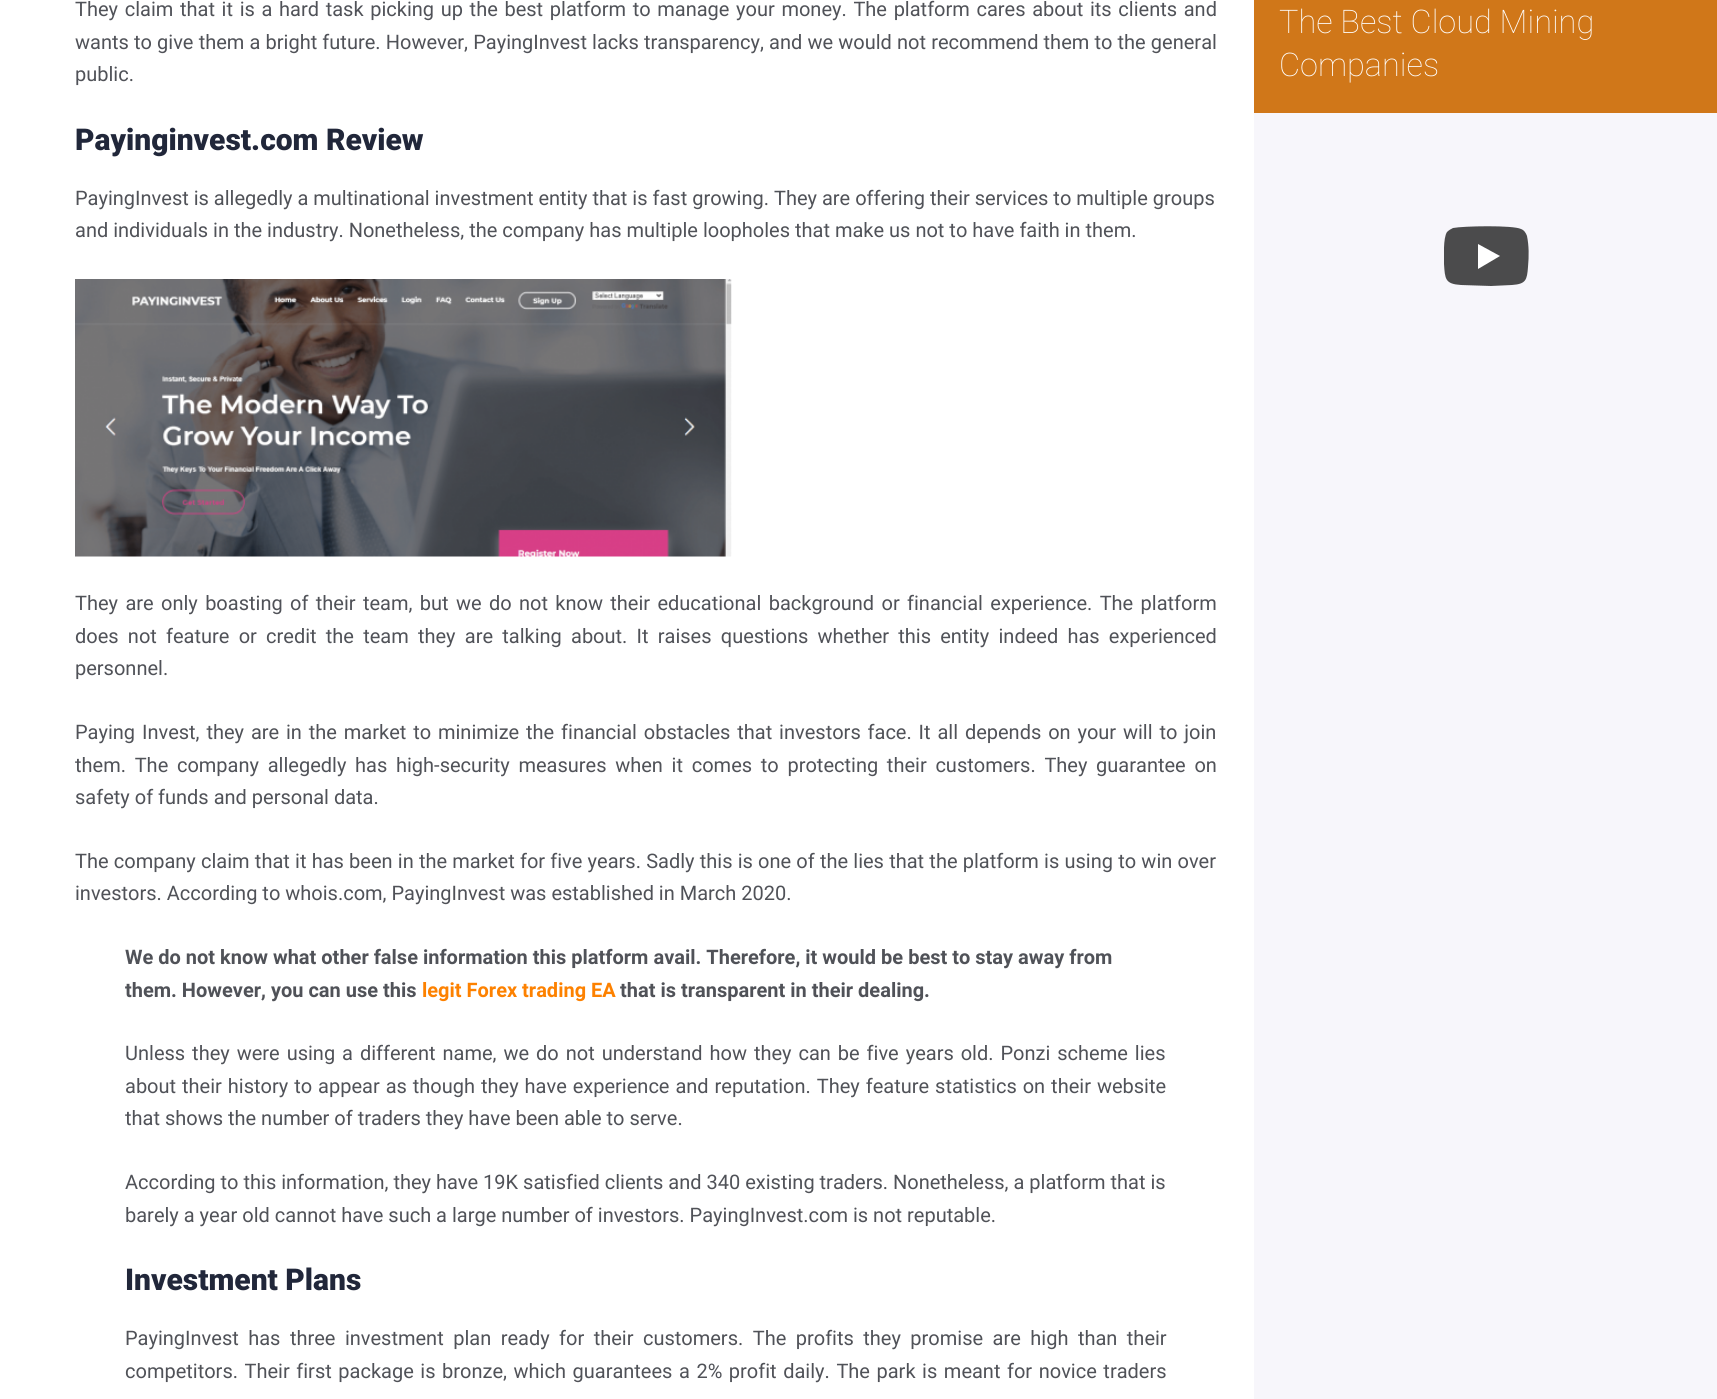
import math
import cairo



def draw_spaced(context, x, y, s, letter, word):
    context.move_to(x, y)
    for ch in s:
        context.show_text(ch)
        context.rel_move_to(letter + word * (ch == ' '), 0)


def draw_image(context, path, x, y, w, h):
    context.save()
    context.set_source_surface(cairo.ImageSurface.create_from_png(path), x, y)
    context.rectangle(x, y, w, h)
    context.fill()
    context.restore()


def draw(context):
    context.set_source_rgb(247 / 255, 246 / 255, 251 / 255)
    context.paint()
    context.set_source_rgb(1, 1, 1)
    context.rectangle(0, 0, 1254, 1399)
    context.fill()
    draw_image(context, "images/1.png", 75, 279, 657, 278)
    context.set_source_rgb(208 / 255, 119 / 255, 25 / 255)
    context.rectangle(1254, 0, 463, 113)
    context.fill()
    context.set_source_rgb(1, 1, 1)
    context.new_path()
    context.move_to(1478, 269)
    context.line_to(1478, 243.5)
    context.line_to(1500, 256.5)
    context.close_path()
    context.fill()
    context.save()
    context.rectangle(1444, 226, 85, 60)
    context.clip()
    context.set_source_rgba(33 / 255, 33 / 255, 33 / 255, 0.8)
    context.new_path()
    context.move_to(1527, 236)
    context.curve_to(1526, 233, 1524, 230, 1521, 229)
    context.curve_to(1513, 225, 1463, 226, 1453, 228)
    context.curve_to(1451, 229, 1449, 230, 1447, 232)
    context.curve_to(1443, 238, 1444, 257, 1444, 264)
    context.curve_to(1445, 279, 1445, 284, 1461, 285)
    context.line_to(1491, 286)
    context.line_to(1512, 285)
    context.curve_to(1526, 284, 1527, 280, 1528, 267)
    context.curve_to(1529, 256, 1529, 246, 1527, 236)
    context.close_path()
    context.move_to(1478, 269)
    context.line_to(1478, 244)
    context.line_to(1500, 256)
    context.close_path()
    context.fill()
    context.restore()
    context.select_font_face("Roboto")
    context.set_font_size(20)
    context.set_source_rgb(80 / 255, 82 / 255, 88 / 255)
    draw_spaced(context, 75, 16, "They claim that it is a hard task picking up the best platform to manage your money. The platform cares about its clients and", 0, 1.7)
    draw_spaced(context, 75, 49, "wants to give them a bright future. However, PayingInvest lacks transparency, and we would not recommend them to the general", 0, 0.2)
    context.move_to(75, 81)
    context.show_text("public.")
    context.select_font_face("Roboto Black")
    context.set_font_size(30)
    context.set_source_rgb(33 / 255, 39 / 255, 58 / 255)
    context.move_to(75, 150)
    context.show_text("Payinginvest.com Review")
    context.select_font_face("Roboto")
    context.set_font_size(20)
    context.set_source_rgb(80 / 255, 82 / 255, 88 / 255)
    context.move_to(75, 205)
    context.show_text("PayingInvest is allegedly a multinational investment entity that is fast growing. They are offering their services to multiple groups")
    context.move_to(75, 237)
    context.show_text("and individuals in the industry. Nonetheless, the company has multiple loopholes that make us not to have faith in them.")
    draw_spaced(context, 75, 610, "They are only boasting of their team, but we do not know their educational background or financial experience. The platform", 0, 2.4)
    draw_spaced(context, 75, 643, "does not feature or credit the team they are talking about. It raises questions whether this entity indeed has experienced", 0, 4.25)
    context.move_to(75, 675)
    context.show_text("personnel.")
    draw_spaced(context, 75, 739, "Paying Invest, they are in the market to minimize the financial obstacles that investors face. It all depends on your will to join", 0, 1.9)
    draw_spaced(context, 75, 772, "them. The company allegedly has high-security measures when it comes to protecting their customers. They guarantee on", 0, 3.75)
    context.move_to(75, 804)
    context.show_text("safety of funds and personal data.")
    draw_spaced(context, 75, 868, "The company claim that it has been in the market for five years. Sadly this is one of the lies that the platform is using to win over", 0, 0.25)
    context.move_to(75, 900)
    context.show_text("investors. According to whois.com, PayingInvest was established in March 2020.")
    context.select_font_face("Roboto", cairo.FontSlant.NORMAL, cairo.FontWeight.BOLD)
    context.move_to(125, 964)
    context.show_text("We do not know what other false information this platform avail. Therefore, it would be best to stay away from")
    context.move_to(125, 997)
    context.show_text("them. However, you can use this")
    context.set_source_rgb(253 / 255, 129 / 255, 0)
    context.move_to(422, 997)
    context.show_text("legit Forex trading EA")
    context.set_source_rgb(80 / 255, 82 / 255, 88 / 255)
    context.move_to(620, 997)
    context.show_text("that is transparent in their dealing.")
    context.select_font_face("Roboto")
    draw_spaced(context, 125, 1060, "Unless they were using a different name, we do not understand how they can be five years old. Ponzi scheme lies", 0, 2)
    draw_spaced(context, 125, 1093, "about their history to appear as though they have experience and reputation. They feature statistics on their website", 0, 1)
    context.move_to(125, 1125)
    context.show_text("that shows the number of traders they have been able to serve.")
    context.move_to(125, 1189)
    context.show_text("According to this information, they have 19K satisfied clients and 340 existing traders. Nonetheless, a platform that is")
    context.move_to(125, 1222)
    context.show_text("barely a year old cannot have such a large number of investors. PayingInvest.com is not reputable.")
    context.select_font_face("Roboto Black")
    context.set_font_size(30)
    context.set_source_rgb(33 / 255, 39 / 255, 58 / 255)
    context.move_to(125, 1290)
    context.show_text("Investment Plans")
    context.select_font_face("Roboto")
    context.set_font_size(20)
    context.set_source_rgb(80 / 255, 82 / 255, 88 / 255)
    draw_spaced(context, 125, 1345, "PayingInvest has three investment plan ready for their customers. The profits they promise are high than their", 0, 4.5)
    draw_spaced(context, 125, 1378, "competitors. Their first package is bronze, which guarantees a 2% profit daily. The park is meant for novice traders", 0, 1.6)
    context.select_font_face("Roboto Thin")
    context.set_font_size(32.5)
    context.set_source_rgb(1, 1, 1)
    context.move_to(1279, 33)
    context.show_text("The Best Cloud Mining")
    context.move_to(1279, 76)
    context.show_text("Companies")


surface = cairo.ImageSurface(cairo.Format.RGB24, 1717, 1399)
context = cairo.Context(surface)
options = cairo.FontOptions()
options.set_hint_metrics(cairo.HintMetrics.OFF)
options.set_hint_style(cairo.HintStyle.NONE)
context.set_font_options(options)
context.set_miter_limit(4)
draw(context)
surface.write_to_png("out.png")
